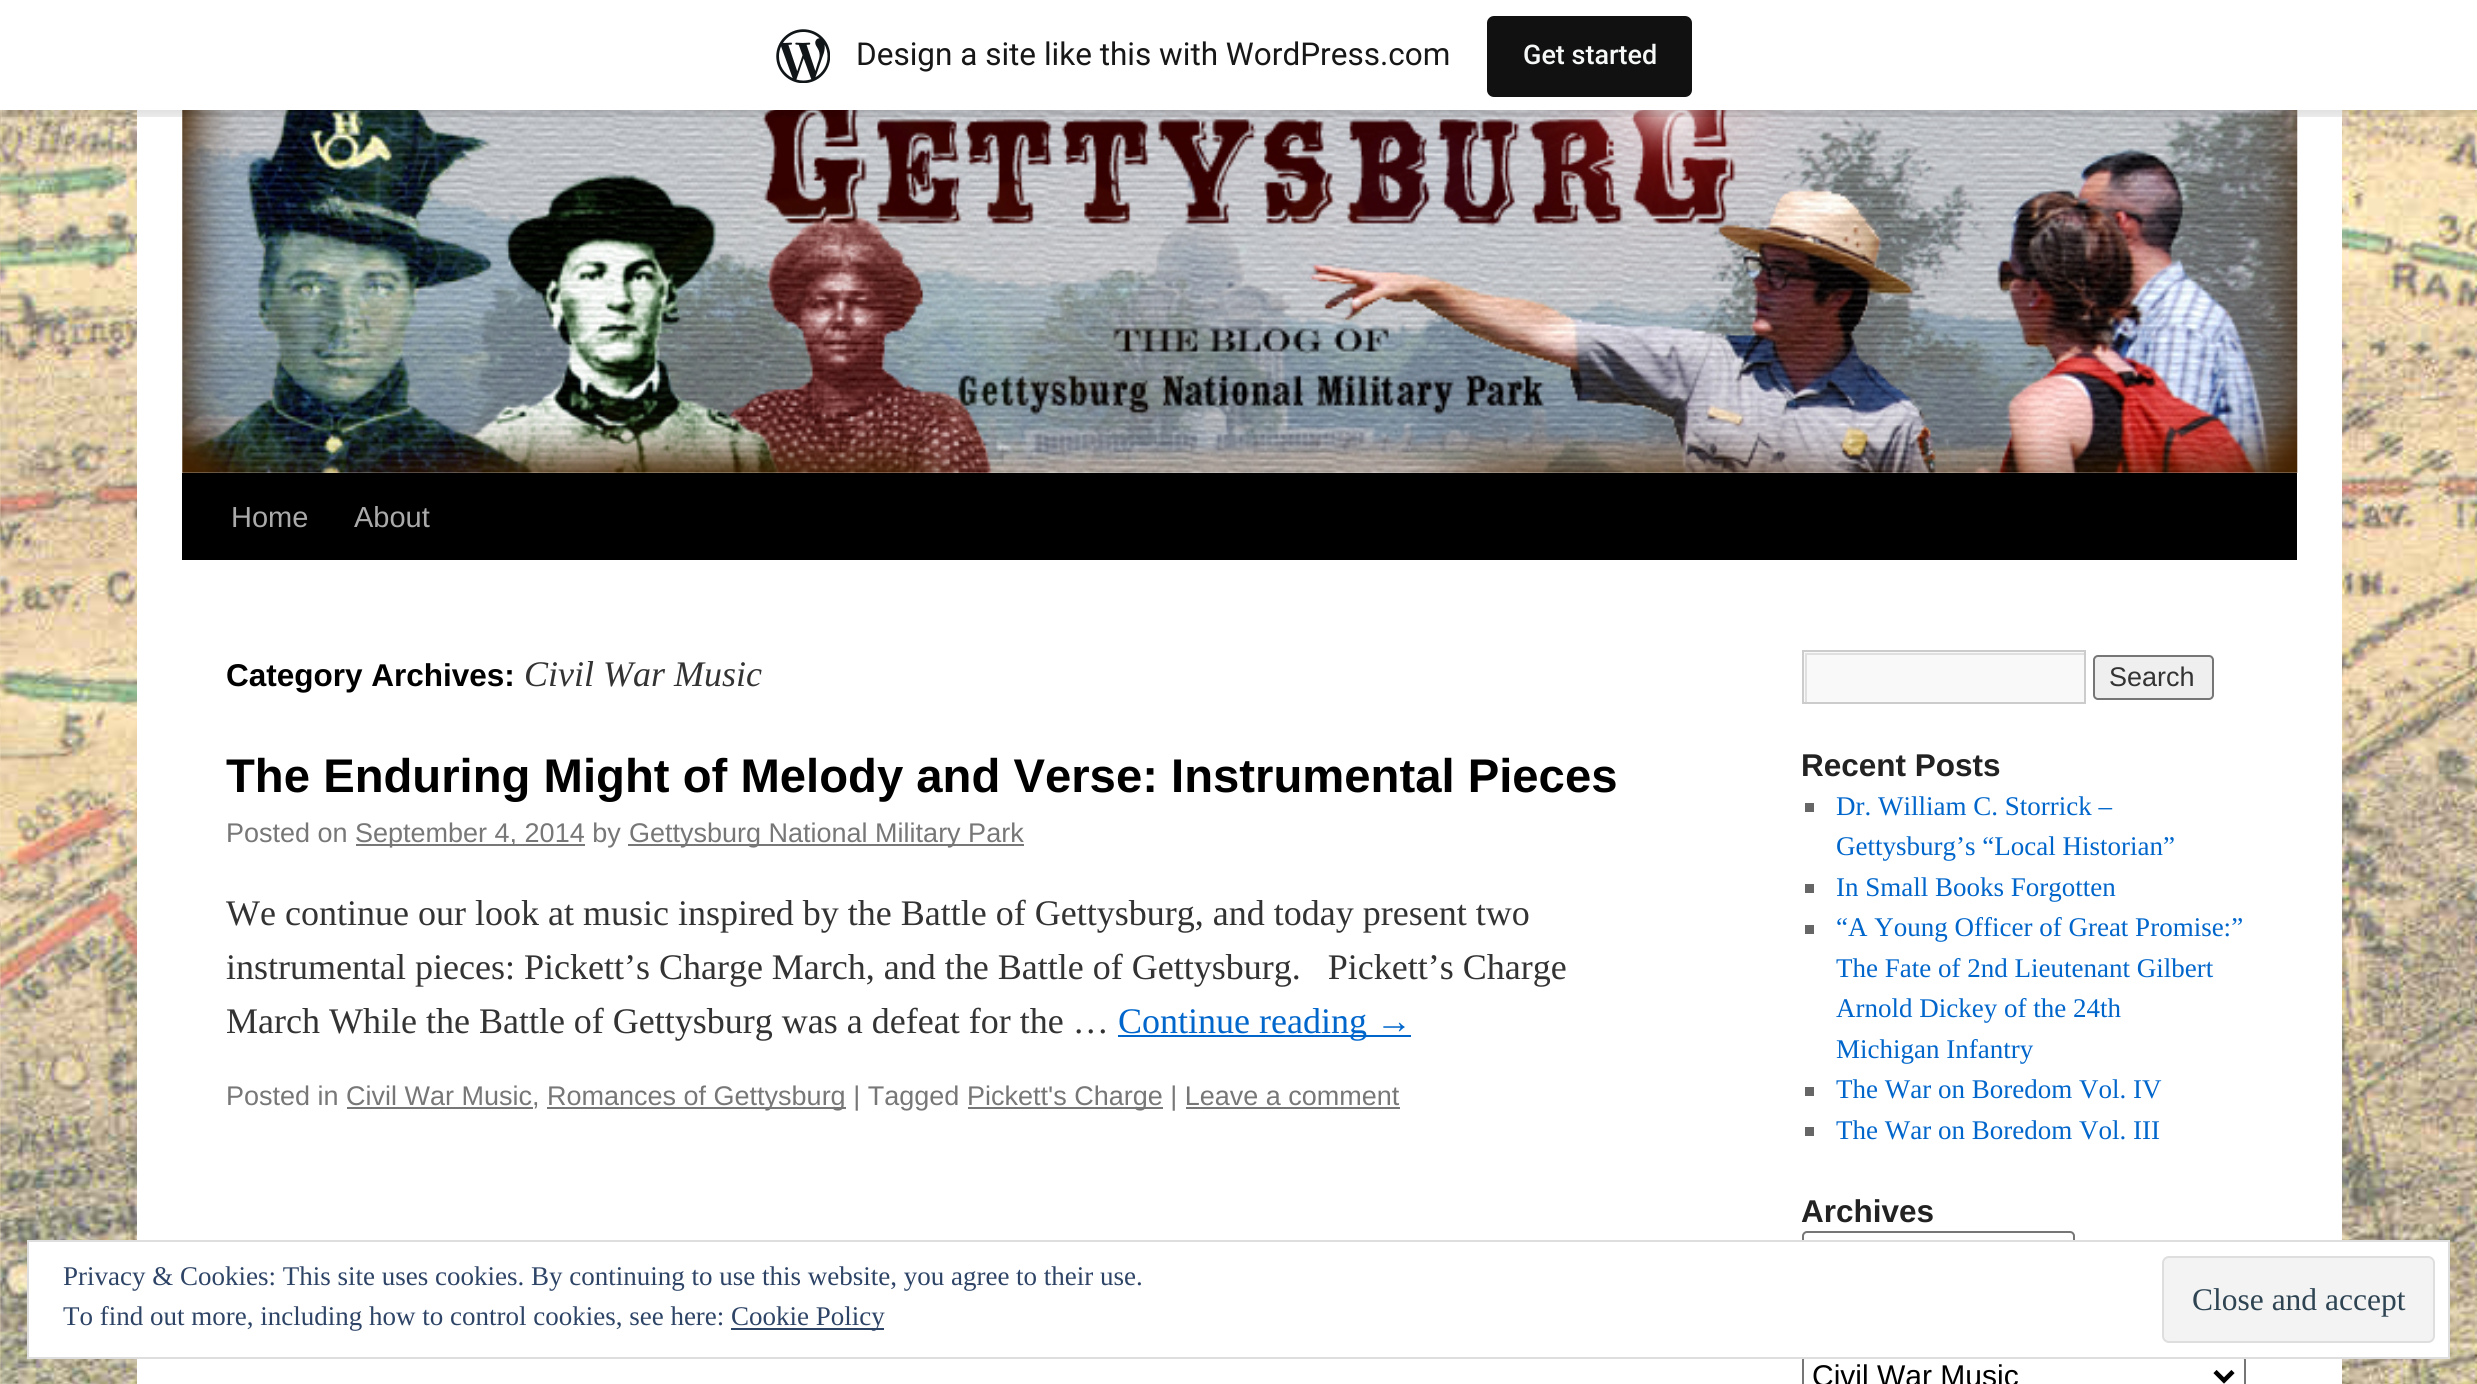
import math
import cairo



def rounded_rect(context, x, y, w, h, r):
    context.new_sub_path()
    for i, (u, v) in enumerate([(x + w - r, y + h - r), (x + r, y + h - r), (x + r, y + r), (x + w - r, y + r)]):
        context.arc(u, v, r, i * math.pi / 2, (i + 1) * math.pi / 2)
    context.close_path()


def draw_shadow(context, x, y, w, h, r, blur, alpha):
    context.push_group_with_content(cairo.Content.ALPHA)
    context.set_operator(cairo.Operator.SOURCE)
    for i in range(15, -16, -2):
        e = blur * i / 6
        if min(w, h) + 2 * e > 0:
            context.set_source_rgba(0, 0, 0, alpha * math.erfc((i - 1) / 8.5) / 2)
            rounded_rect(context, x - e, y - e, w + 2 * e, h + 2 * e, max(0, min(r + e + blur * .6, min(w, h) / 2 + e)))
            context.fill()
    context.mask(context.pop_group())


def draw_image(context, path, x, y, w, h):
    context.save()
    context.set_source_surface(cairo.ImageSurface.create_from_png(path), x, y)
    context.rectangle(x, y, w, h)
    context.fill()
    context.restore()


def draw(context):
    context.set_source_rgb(1, 1, 1)
    context.paint()
    draw_image(context, "images/1.png", 0, 110, 2477, 1274)
    context.set_source_rgb(1, 1, 1)
    context.rectangle(137, 110, 2205, 1274)
    context.fill()
    draw_image(context, "images/3.png", 182, 110, 2116, 363)
    context.set_source_rgb(0, 0, 0)
    draw_shadow(context, 0, 2, 2477, 111, 0, 2, 0.05)
    context.set_source_rgba(0, 0, 0, 0.08)
    context.new_path()
    context.move_to(2, 110)
    context.line_to(2, 117)
    context.line_to(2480, 117)
    context.line_to(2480, 7)
    context.line_to(2477, 7)
    context.line_to(2477, 110)
    context.close_path()
    context.fill()
    context.set_source_rgb(1, 1, 1)
    context.rectangle(0, 0, 2477, 110)
    context.fill()
    draw_image(context, "images/2.png", 776, 29, 54, 54)
    context.set_source_rgb(17 / 255, 17 / 255, 17 / 255)
    rounded_rect(context, 1487, 16, 205, 81, 7)
    context.fill()
    context.set_source_rgb(0, 0, 0)
    context.rectangle(182, 473, 2115, 87)
    context.fill()
    context.set_source_rgb(119 / 255, 119 / 255, 119 / 255)
    context.rectangle(356, 844, 229, 2)
    context.fill()
    context.rectangle(628, 844, 396, 2)
    context.fill()
    context.set_source_rgb(0, 102 / 255, 204 / 255)
    context.rectangle(1118, 1035, 293, 2)
    context.fill()
    context.set_source_rgb(119 / 255, 119 / 255, 119 / 255)
    context.rectangle(347, 1107, 186, 2)
    context.fill()
    context.rectangle(547, 1107, 299, 2)
    context.fill()
    context.rectangle(968, 1107, 195, 2)
    context.fill()
    context.rectangle(1186, 1107, 214, 2)
    context.fill()
    context.set_source_rgb(249 / 255, 249 / 255, 249 / 255)
    context.rectangle(1804, 652, 280, 50)
    context.fill()
    context.save()
    context.rectangle(1805, 653, 279, 49)
    context.clip()
    context.set_source_rgb(224 / 255, 224 / 255, 224 / 255)
    context.set_fill_rule(cairo.FillRule.EVEN_ODD)
    context.new_path()
    context.move_to(1582, 430)
    context.line_to(2306, 430)
    context.line_to(2306, 925)
    context.line_to(1582, 925)
    context.close_path()
    context.move_to(1807, 655)
    context.line_to(2086, 655)
    context.line_to(2086, 704)
    context.line_to(1807, 704)
    context.close_path()
    context.fill()
    context.restore()
    context.rectangle(1803, 651, 282, 52)
    context.set_source_rgb(204 / 255, 204 / 255, 204 / 255)
    context.stroke()
    context.set_source_rgb(239 / 255, 239 / 255, 239 / 255)
    rounded_rect(context, 2094, 656, 119, 43, 4)
    context.fill_preserve()
    context.set_source_rgb(118 / 255, 118 / 255, 118 / 255)
    context.stroke()
    context.set_source_rgb(102 / 255, 102 / 255, 102 / 255)
    context.rectangle(1805, 803, 9, 9)
    context.fill()
    context.rectangle(1805, 884, 9, 9)
    context.fill()
    context.rectangle(1805, 925, 9, 9)
    context.fill()
    context.rectangle(1805, 1087, 9, 9)
    context.fill()
    context.rectangle(1805, 1127, 9, 9)
    context.fill()
    rounded_rect(context, 1803, 1232, 271, 41, 4)
    context.set_source_rgb(118 / 255, 118 / 255, 118 / 255)
    context.stroke()
    rounded_rect(context, 1803, 1356, 442, 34, 4)
    context.stroke()
    context.new_path()
    context.move_to(2215, 1371.5)
    context.line_to(2224, 1380.5)
    context.line_to(2233, 1371.5)
    context.set_source_rgb(0, 0, 0)
    context.set_line_width(4.5)
    context.stroke()
    context.set_source_rgb(1, 1, 1)
    context.rectangle(28, 1241, 2421, 117)
    context.fill_preserve()
    context.set_source_rgb(222 / 255, 222 / 255, 222 / 255)
    context.set_line_width(2)
    context.stroke()
    context.set_source_rgb(46 / 255, 68 / 255, 103 / 255)
    context.rectangle(731, 1328, 153, 2)
    context.fill()
    context.set_source_rgb(243 / 255, 243 / 255, 243 / 255)
    rounded_rect(context, 2163, 1257, 271, 85, 6)
    context.fill_preserve()
    context.set_source_rgb(222 / 255, 222 / 255, 222 / 255)
    context.stroke()
    context.select_font_face("Roboto")
    context.set_font_size(31.5)
    context.set_source_rgb(23 / 255, 23 / 255, 23 / 255)
    context.move_to(856, 65)
    context.show_text("Design a site like this with WordPress.com")
    context.select_font_face("Roboto Medium")
    context.set_font_size(27)
    context.set_source_rgb(246 / 255, 247 / 255, 247 / 255)
    context.move_to(1523, 64)
    context.show_text("Get started")
    context.select_font_face("Liberation Sans")
    context.set_font_size(29)
    context.set_source_rgb(170 / 255, 170 / 255, 170 / 255)
    context.move_to(231, 527)
    context.show_text("Home")
    context.move_to(354, 527)
    context.show_text("About")
    context.select_font_face("Liberation Sans", cairo.FontSlant.NORMAL, cairo.FontWeight.BOLD)
    context.set_font_size(31.5)
    context.set_source_rgb(0, 0, 0)
    context.move_to(226, 686)
    context.show_text("Category Archives:")
    context.select_font_face("Liberation Serif", cairo.FontSlant.ITALIC)
    context.set_font_size(36)
    context.set_source_rgb(51 / 255, 51 / 255, 51 / 255)
    context.move_to(524, 686)
    context.show_text("Civil War Music")
    context.select_font_face("Liberation Sans", cairo.FontSlant.NORMAL, cairo.FontWeight.BOLD)
    context.set_font_size(47.25)
    context.set_source_rgb(0, 0, 0)
    context.move_to(226, 792)
    context.show_text("The Enduring Might of Melody and Verse: Instrumental Pieces")
    context.select_font_face("Liberation Sans")
    context.set_font_size(27)
    context.set_source_rgb(119 / 255, 119 / 255, 119 / 255)
    context.move_to(226, 842)
    context.show_text("Posted on")
    context.move_to(355, 842)
    context.show_text("September 4, 2014 by")
    context.move_to(629, 842)
    context.show_text("Gettysburg National Military Park")
    context.select_font_face("Liberation Serif")
    context.set_font_size(36)
    context.set_source_rgb(51 / 255, 51 / 255, 51 / 255)
    context.move_to(226, 925)
    context.show_text("We continue our look at music inspired by the Battle of Gettysburg, and today present two")
    context.move_to(226, 979)
    context.show_text("instrumental pieces: Pickett’s Charge March, and the Battle of Gettysburg.   Pickett’s Charge")
    context.move_to(226, 1033)
    context.show_text("March While the Battle of Gettysburg was a defeat for the …")
    context.set_source_rgb(0, 102 / 255, 204 / 255)
    context.move_to(1118, 1033)
    context.show_text("Continue reading →")
    context.select_font_face("Liberation Sans")
    context.set_font_size(27)
    context.set_source_rgb(119 / 255, 119 / 255, 119 / 255)
    context.move_to(226, 1105)
    context.show_text("Posted in Civil War Music,")
    context.move_to(547, 1105)
    context.show_text("Romances of Gettysburg | Tagged")
    context.move_to(967, 1105)
    context.show_text("Pickett's Charge | Leave a comment")
    context.set_source_rgb(51 / 255, 51 / 255, 51 / 255)
    context.move_to(2109, 686)
    context.show_text("Search")
    context.select_font_face("Liberation Sans", cairo.FontSlant.NORMAL, cairo.FontWeight.BOLD)
    context.set_font_size(31.5)
    context.set_source_rgb(34 / 255, 34 / 255, 34 / 255)
    context.move_to(1801, 776)
    context.show_text("Recent Posts")
    context.select_font_face("Liberation Serif")
    context.set_font_size(27)
    context.set_source_rgb(0, 102 / 255, 204 / 255)
    context.move_to(1836, 815)
    context.show_text("Dr. William C. Storrick –")
    context.move_to(1836, 855)
    context.show_text("Gettysburg’s “Local Historian”")
    context.move_to(1836, 896)
    context.show_text("In Small Books Forgotten")
    context.move_to(1836, 936)
    context.show_text("“A Young Officer of Great Promise:”")
    context.move_to(1836, 977)
    context.show_text("The Fate of 2nd Lieutenant Gilbert")
    context.move_to(1836, 1017)
    context.show_text("Arnold Dickey of the 24th")
    context.move_to(1836, 1058)
    context.show_text("Michigan Infantry")
    context.move_to(1836, 1098)
    context.show_text("The War on Boredom Vol. IV")
    context.move_to(1836, 1139)
    context.show_text("The War on Boredom Vol. III")
    context.select_font_face("Liberation Sans", cairo.FontSlant.NORMAL, cairo.FontWeight.BOLD)
    context.set_font_size(31.5)
    context.set_source_rgb(34 / 255, 34 / 255, 34 / 255)
    context.move_to(1801, 1222)
    context.show_text("Archives")
    context.select_font_face("Liberation Sans")
    context.set_font_size(30)
    context.set_source_rgb(0, 0, 0)
    context.move_to(1812, 1386)
    context.show_text("Civil War Music")
    context.select_font_face("Liberation Serif")
    context.set_font_size(27)
    context.set_source_rgb(46 / 255, 68 / 255, 103 / 255)
    context.move_to(63, 1285)
    context.show_text("Privacy & Cookies: This site uses cookies. By continuing to use this website, you agree to their use.")
    context.move_to(63, 1325)
    context.show_text("To find out more, including how to control cookies, see here:")
    context.move_to(731, 1325)
    context.show_text("Cookie Policy")
    context.set_font_size(31.5)
    context.set_source_rgb(46 / 255, 68 / 255, 83 / 255)
    context.move_to(2192, 1310)
    context.show_text("Close and accept")


surface = cairo.ImageSurface(cairo.Format.RGB24, 2477, 1384)
context = cairo.Context(surface)
options = cairo.FontOptions()
options.set_hint_metrics(cairo.HintMetrics.OFF)
options.set_hint_style(cairo.HintStyle.NONE)
context.set_font_options(options)
context.set_miter_limit(4)
draw(context)
surface.write_to_png("out.png")
